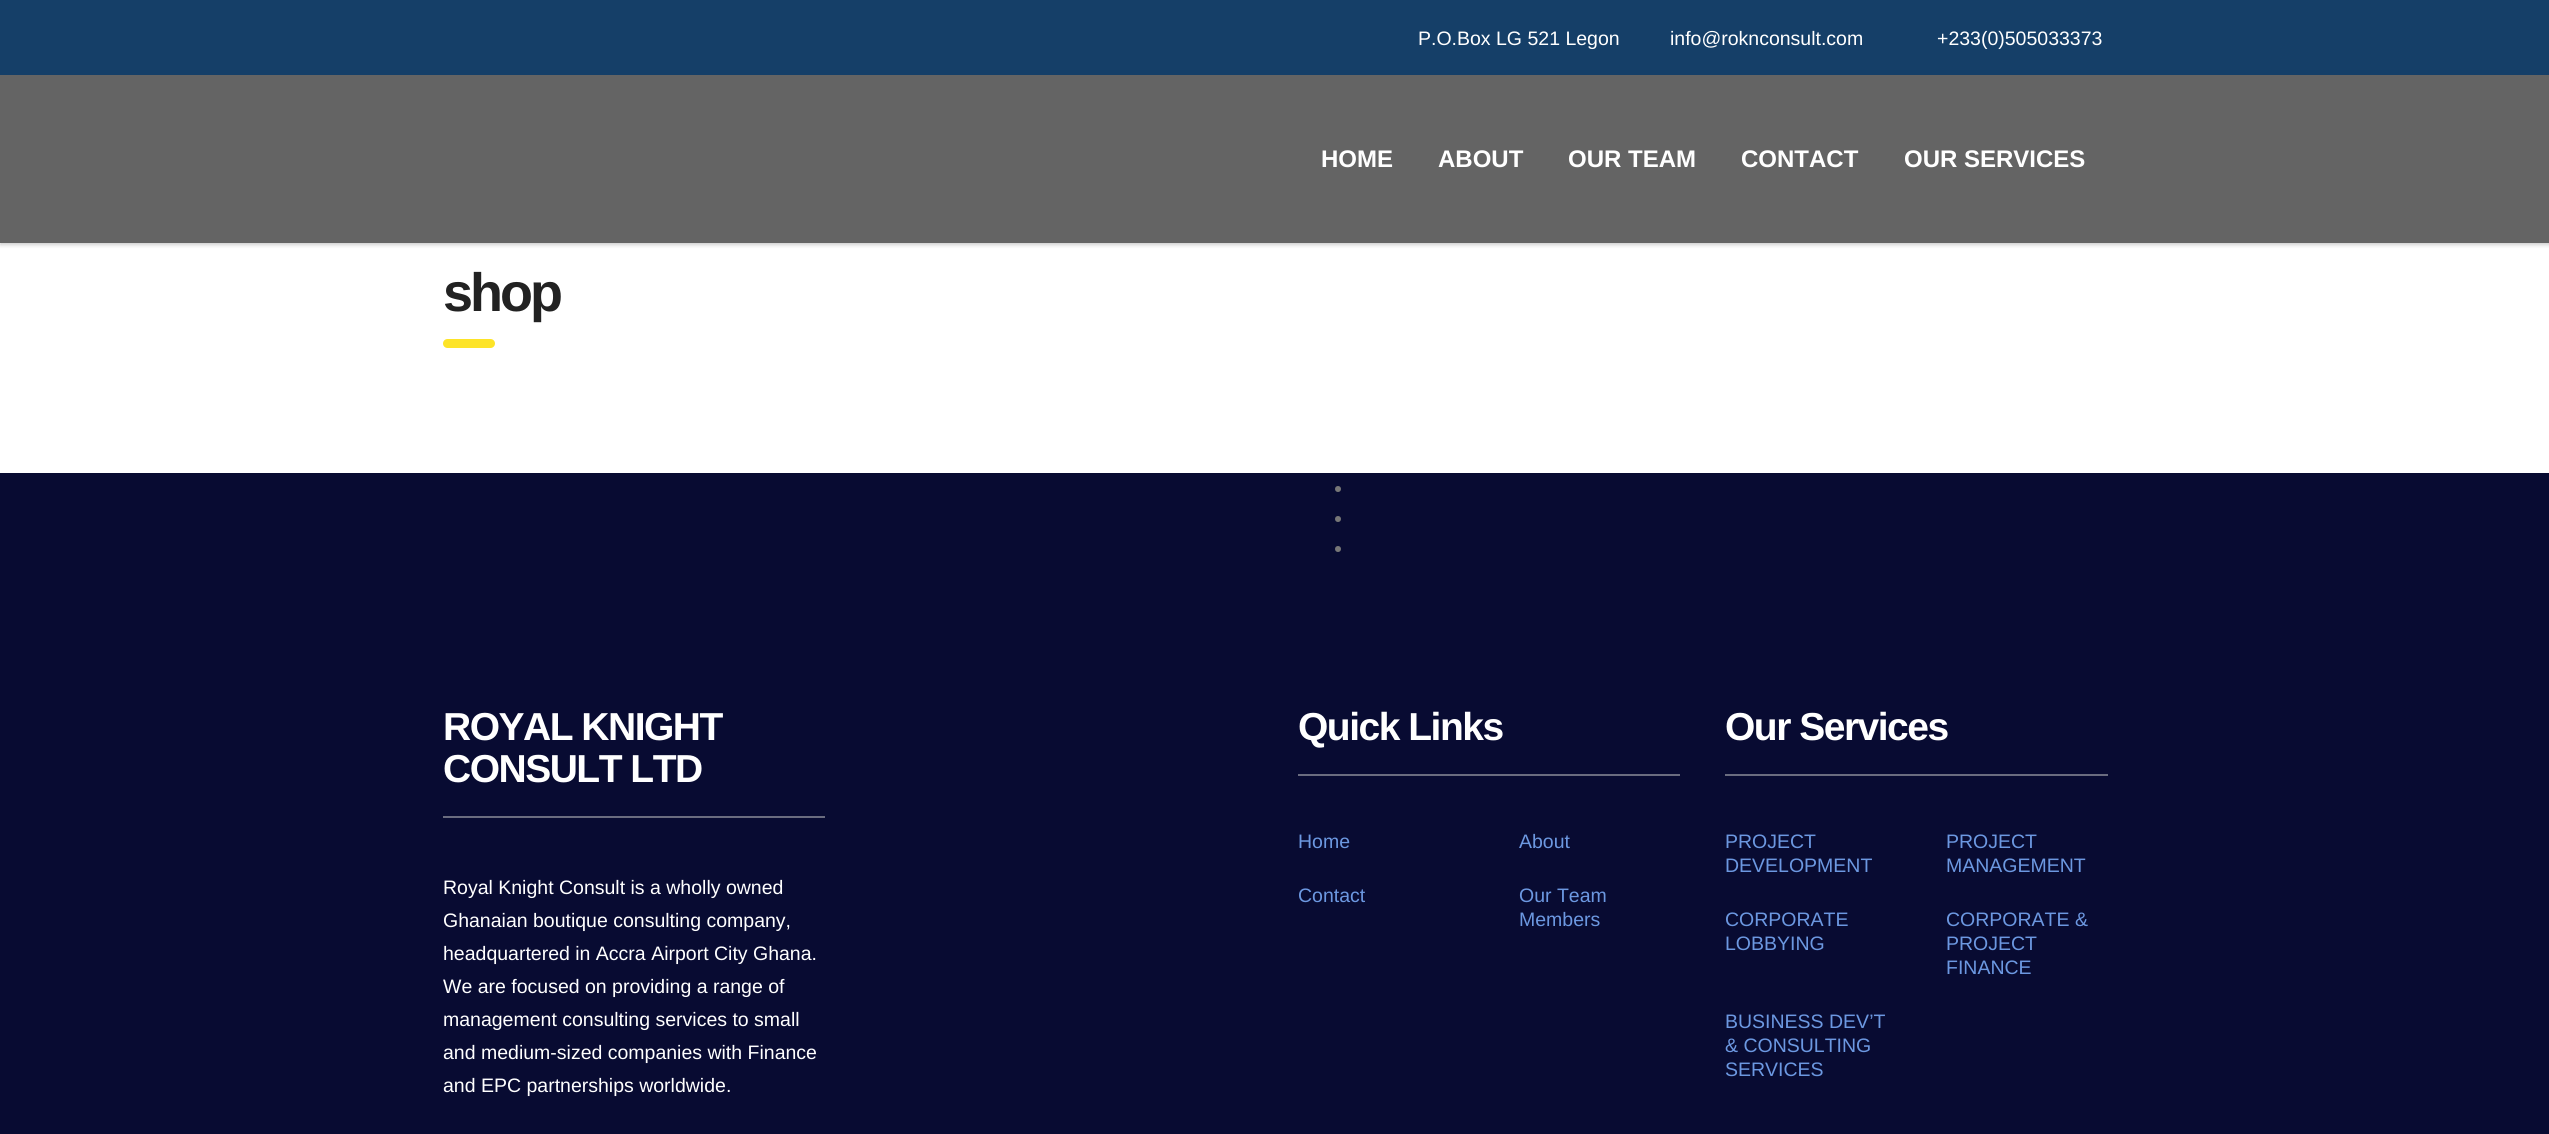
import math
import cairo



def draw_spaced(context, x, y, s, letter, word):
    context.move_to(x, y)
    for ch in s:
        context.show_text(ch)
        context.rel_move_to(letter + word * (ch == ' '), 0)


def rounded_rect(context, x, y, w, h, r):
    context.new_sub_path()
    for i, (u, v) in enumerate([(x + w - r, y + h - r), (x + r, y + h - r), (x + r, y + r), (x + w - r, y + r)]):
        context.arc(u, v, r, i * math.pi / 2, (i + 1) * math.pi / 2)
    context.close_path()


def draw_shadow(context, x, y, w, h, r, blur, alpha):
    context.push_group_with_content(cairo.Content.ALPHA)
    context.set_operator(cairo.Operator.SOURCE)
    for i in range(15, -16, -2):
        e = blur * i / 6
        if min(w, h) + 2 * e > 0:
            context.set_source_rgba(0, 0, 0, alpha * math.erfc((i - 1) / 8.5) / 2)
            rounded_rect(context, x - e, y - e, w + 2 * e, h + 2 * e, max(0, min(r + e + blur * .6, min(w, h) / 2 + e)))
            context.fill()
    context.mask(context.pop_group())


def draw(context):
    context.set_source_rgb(1, 1, 1)
    context.paint()
    context.set_source_rgb(0, 0, 0)
    draw_shadow(context, 0, 77, 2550, 168, 0, 2, 0.2)
    context.set_source_rgb(21 / 255, 63 / 255, 104 / 255)
    context.rectangle(0, 0, 2549, 75)
    context.fill()
    context.set_source_rgb(100 / 255, 100 / 255, 100 / 255)
    context.rectangle(0, 75, 2549, 168)
    context.fill()
    context.set_source_rgb(253 / 255, 228 / 255, 40 / 255)
    rounded_rect(context, 443, 339, 52, 9, 4.5)
    context.fill()
    context.set_source_rgb(8 / 255, 11 / 255, 50 / 255)
    context.rectangle(0, 473, 2549, 661)
    context.fill()
    context.set_source_rgb(119 / 255, 119 / 255, 119 / 255)
    context.arc(1338, 489, 3, 0, 2 * math.pi)
    context.fill()
    context.arc(1338, 519, 3, 0, 2 * math.pi)
    context.fill()
    context.arc(1338, 549, 3, 0, 2 * math.pi)
    context.fill()
    context.set_source_rgb(106 / 255, 108 / 255, 127 / 255)
    context.rectangle(443, 816, 382, 2)
    context.fill()
    context.rectangle(1298, 774, 382, 2)
    context.fill()
    context.rectangle(1725, 774, 383, 2)
    context.fill()
    context.select_font_face("Liberation Sans")
    context.set_font_size(19.5)
    context.set_source_rgb(1, 1, 1)
    context.move_to(1418, 45)
    context.show_text("P.O.Box LG 521 Legon")
    context.move_to(1670, 45)
    context.show_text("info@roknconsult.com")
    context.move_to(1937, 45)
    context.show_text("+233(0)505033373")
    context.select_font_face("Liberation Sans", cairo.FontSlant.NORMAL, cairo.FontWeight.BOLD)
    context.set_font_size(24)
    context.move_to(1321, 167)
    context.show_text("HOME")
    context.move_to(1438, 167)
    context.show_text("ABOUT")
    context.move_to(1568, 167)
    context.show_text("OUR TEAM")
    context.move_to(1741, 167)
    context.show_text("CONTACT")
    context.move_to(1904, 167)
    context.show_text("OUR SERVICES")
    context.set_font_size(54)
    context.set_source_rgb(34 / 255, 34 / 255, 34 / 255)
    draw_spaced(context, 443, 311, "shop", -3, 0)
    context.set_font_size(39)
    context.set_source_rgb(1, 1, 1)
    draw_spaced(context, 443, 740, "ROYAL KNIGHT", -1.5, 0)
    draw_spaced(context, 443, 782, "CONSULT LTD", -1.5, 0)
    context.select_font_face("Liberation Sans")
    context.set_font_size(19.5)
    context.move_to(443, 894)
    context.show_text("Royal Knight Consult is a wholly owned")
    context.move_to(443, 927)
    context.show_text("Ghanaian boutique consulting company,")
    context.move_to(443, 960)
    context.show_text("headquartered in Accra Airport City Ghana.")
    context.move_to(443, 993)
    context.show_text("We are focused on providing a range of")
    context.move_to(443, 1026)
    context.show_text("management consulting services to small")
    context.move_to(443, 1059)
    context.show_text("and medium-sized companies with Finance")
    context.move_to(443, 1092)
    context.show_text("and EPC partnerships worldwide.")
    context.select_font_face("Liberation Sans", cairo.FontSlant.NORMAL, cairo.FontWeight.BOLD)
    context.set_font_size(39)
    draw_spaced(context, 1298, 740, "Quick Links", -1.5, 0)
    context.select_font_face("Liberation Sans")
    context.set_font_size(19.5)
    context.set_source_rgb(108 / 255, 152 / 255, 225 / 255)
    context.move_to(1298, 848)
    context.show_text("Home")
    context.move_to(1519, 848)
    context.show_text("About")
    context.move_to(1298, 902)
    context.show_text("Contact")
    context.move_to(1519, 902)
    context.show_text("Our Team")
    context.move_to(1519, 926)
    context.show_text("Members")
    context.select_font_face("Liberation Sans", cairo.FontSlant.NORMAL, cairo.FontWeight.BOLD)
    context.set_font_size(39)
    context.set_source_rgb(1, 1, 1)
    draw_spaced(context, 1725, 740, "Our Services", -1.5, 0)
    context.select_font_face("Liberation Sans")
    context.set_font_size(19.5)
    context.set_source_rgb(108 / 255, 152 / 255, 225 / 255)
    context.move_to(1725, 848)
    context.show_text("PROJECT")
    context.move_to(1725, 872)
    context.show_text("DEVELOPMENT")
    context.move_to(1946, 848)
    context.show_text("PROJECT")
    context.move_to(1946, 872)
    context.show_text("MANAGEMENT")
    context.move_to(1725, 926)
    context.show_text("CORPORATE")
    context.move_to(1725, 950)
    context.show_text("LOBBYING")
    context.move_to(1946, 926)
    context.show_text("CORPORATE &")
    context.move_to(1946, 950)
    context.show_text("PROJECT")
    context.move_to(1946, 974)
    context.show_text("FINANCE")
    context.move_to(1725, 1028)
    context.show_text("BUSINESS DEV’T")
    context.move_to(1725, 1052)
    context.show_text("& CONSULTING")
    context.move_to(1725, 1076)
    context.show_text("SERVICES")


surface = cairo.ImageSurface(cairo.Format.RGB24, 2549, 1134)
context = cairo.Context(surface)
options = cairo.FontOptions()
options.set_hint_metrics(cairo.HintMetrics.OFF)
options.set_hint_style(cairo.HintStyle.NONE)
context.set_font_options(options)
context.set_miter_limit(4)
draw(context)
surface.write_to_png("out.png")
